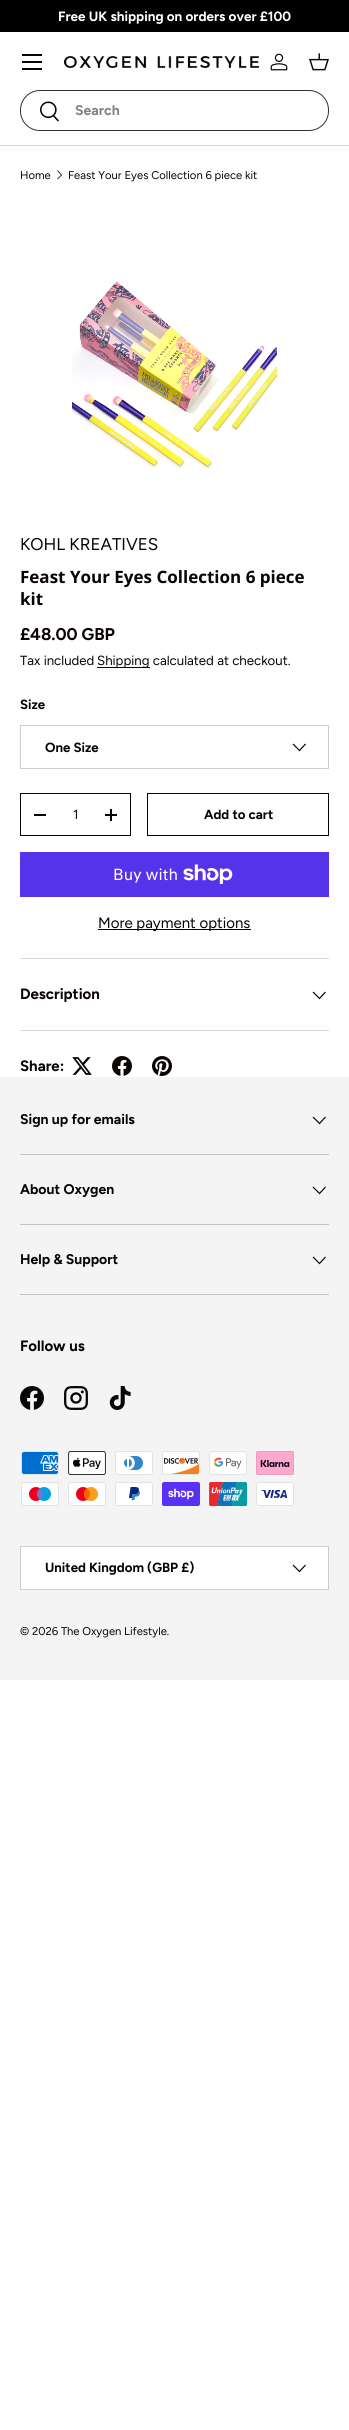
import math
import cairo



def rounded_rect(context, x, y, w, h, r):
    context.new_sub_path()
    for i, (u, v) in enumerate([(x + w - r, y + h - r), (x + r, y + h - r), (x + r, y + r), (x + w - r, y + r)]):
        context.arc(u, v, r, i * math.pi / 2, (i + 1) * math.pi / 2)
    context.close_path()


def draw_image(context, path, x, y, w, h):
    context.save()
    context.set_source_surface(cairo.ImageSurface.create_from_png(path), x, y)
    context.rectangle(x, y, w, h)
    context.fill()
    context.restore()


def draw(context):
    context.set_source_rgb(1, 1, 1)
    context.paint()
    context.set_source_rgb(0, 0, 0)
    context.rectangle(0, 0, 349, 32)
    context.fill()
    context.set_source_rgb(218 / 255, 217 / 255, 217 / 255)
    context.rectangle(0, 145, 349, 1)
    context.fill()
    context.set_source_rgb(9 / 255, 3 / 255, 2 / 255)
    context.rectangle(22, 54, 20, 2)
    context.fill()
    context.rectangle(22, 68, 20, 2)
    context.fill()
    context.rectangle(22, 61, 20, 2)
    context.fill()
    draw_image(context, "images/1.png", 64, 56, 195, 12)
    draw_image(context, "images/2.png", 270, 53, 18, 18)
    draw_image(context, "images/3.png", 309, 53, 20, 18)
    rounded_rect(context, 20.5, 90.5, 308, 40, 19.5)
    context.set_source_rgb(51 / 255, 51 / 255, 51 / 255)
    context.set_line_width(1)
    context.stroke()
    draw_image(context, "images/4.png", 40, 101, 19, 21)
    context.new_path()
    context.move_to(57.5, 170.5)
    context.line_to(61.5, 175)
    context.line_to(57.5, 179)
    context.set_source_rgb(9 / 255, 3 / 255, 2 / 255)
    context.set_line_width(0.8)
    context.stroke()
    draw_image(context, "images/5.png", 72, 281, 205, 188)
    context.rectangle(97, 667, 53, 1)
    context.fill()
    context.rectangle(20.5, 725.5, 308, 43)
    context.set_source_rgb(206 / 255, 205 / 255, 204 / 255)
    context.set_line_width(1)
    context.stroke()
    context.new_path()
    context.move_to(305.5, 744)
    context.line_to(299.5, 750.5)
    context.line_to(293, 744)
    context.set_source_rgb(9 / 255, 3 / 255, 2 / 255)
    context.set_line_width(1.2)
    context.stroke()
    context.rectangle(20.5, 793.5, 110, 42)
    context.set_line_width(1)
    context.stroke()
    context.rectangle(34, 814, 12, 2)
    context.fill()
    context.rectangle(105, 814, 12, 2)
    context.fill()
    context.rectangle(110, 809, 2, 12)
    context.fill()
    context.rectangle(147.5, 793.5, 181, 42)
    context.stroke()
    context.set_source_rgb(84 / 255, 51 / 255, 235 / 255)
    context.rectangle(20, 852, 309, 45)
    context.fill()
    draw_image(context, "images/6.png", 183, 864, 50, 20)
    context.set_source_rgb(9 / 255, 3 / 255, 2 / 255)
    context.rectangle(98, 929, 153, 1)
    context.fill()
    context.set_source_rgb(218 / 255, 217 / 255, 217 / 255)
    context.rectangle(20, 958, 309, 1)
    context.fill()
    context.rectangle(20, 1030, 309, 1)
    context.fill()
    context.new_path()
    context.move_to(325.5, 992)
    context.line_to(319.5, 998.5)
    context.line_to(313, 992)
    context.set_source_rgb(9 / 255, 3 / 255, 2 / 255)
    context.set_line_width(1.2)
    context.stroke()
    draw_image(context, "images/7.png", 72, 1057, 20, 18)
    draw_image(context, "images/8.png", 112, 1056, 20, 20)
    draw_image(context, "images/9.png", 152, 1056, 20, 20)
    context.set_source_rgb(244 / 255, 244 / 255, 244 / 255)
    context.rectangle(0, 1077, 349, 603)
    context.fill()
    context.set_source_rgb(197 / 255, 197 / 255, 197 / 255)
    context.rectangle(20, 1154, 309, 1)
    context.fill()
    context.new_path()
    context.move_to(325.5, 1117)
    context.line_to(319.5, 1123.5)
    context.line_to(313, 1117)
    context.set_source_rgb(7 / 255, 7 / 255, 7 / 255)
    context.stroke()
    context.set_source_rgb(197 / 255, 197 / 255, 197 / 255)
    context.rectangle(20, 1224, 309, 1)
    context.fill()
    context.new_path()
    context.move_to(325.5, 1187)
    context.line_to(319.5, 1193.5)
    context.line_to(313, 1187)
    context.set_source_rgb(7 / 255, 7 / 255, 7 / 255)
    context.stroke()
    context.set_source_rgb(197 / 255, 197 / 255, 197 / 255)
    context.rectangle(20, 1294, 309, 1)
    context.fill()
    context.new_path()
    context.move_to(325.5, 1257)
    context.line_to(319.5, 1263.5)
    context.line_to(313, 1257)
    context.set_source_rgb(7 / 255, 7 / 255, 7 / 255)
    context.stroke()
    draw_image(context, "images/10.png", 20, 1386, 24, 24)
    draw_image(context, "images/11.png", 64, 1386, 24, 24)
    draw_image(context, "images/12.png", 109, 1386, 22, 24)
    draw_image(context, "images/13.png", 21, 1451, 38, 24)
    draw_image(context, "images/14.png", 68, 1451, 38, 24)
    draw_image(context, "images/15.png", 115, 1451, 38, 24)
    draw_image(context, "images/16.png", 162, 1451, 38, 24)
    draw_image(context, "images/17.png", 209, 1451, 38, 24)
    draw_image(context, "images/18.png", 256, 1451, 38, 24)
    draw_image(context, "images/19.png", 21, 1482, 38, 24)
    draw_image(context, "images/20.png", 68, 1482, 38, 24)
    draw_image(context, "images/21.png", 115, 1482, 38, 24)
    draw_image(context, "images/22.png", 162, 1482, 38, 24)
    draw_image(context, "images/23.png", 209, 1482, 38, 24)
    draw_image(context, "images/24.png", 256, 1482, 38, 24)
    context.set_source_rgb(1, 1, 1)
    context.rectangle(20.5, 1546.5, 308, 43)
    context.fill_preserve()
    context.set_source_rgb(205 / 255, 205 / 255, 205 / 255)
    context.set_line_width(1)
    context.stroke()
    context.new_path()
    context.move_to(305.5, 1565)
    context.line_to(299.5, 1571.5)
    context.line_to(293, 1565)
    context.set_source_rgb(9 / 255, 3 / 255, 2 / 255)
    context.set_line_width(1.2)
    context.stroke()
    context.select_font_face("Figtree", cairo.FontSlant.NORMAL, cairo.FontWeight.BOLD)
    context.set_font_size(13.5)
    context.set_source_rgb(1, 1, 1)
    context.move_to(58, 21)
    context.show_text("Free UK shipping on orders over £100")
    context.set_font_size(14)
    context.set_source_rgb(132 / 255, 129 / 255, 129 / 255)
    context.move_to(75, 115)
    context.show_text("Search")
    context.select_font_face("Figtree")
    context.set_font_size(11.25)
    context.set_source_rgb(9 / 255, 3 / 255, 2 / 255)
    context.move_to(20, 179)
    context.show_text("Home")
    context.move_to(68, 179)
    context.show_text("Feast Your Eyes Collection 6 piece kit")
    context.set_font_size(17)
    context.move_to(20, 550)
    context.show_text("KOHL KREATIVES")
    context.select_font_face("Open Sans", cairo.FontSlant.NORMAL, cairo.FontWeight.BOLD)
    context.move_to(20, 583)
    context.show_text("Feast Your Eyes Collection 6 piece")
    context.move_to(20, 605)
    context.show_text("kit")
    context.select_font_face("Figtree", cairo.FontSlant.NORMAL, cairo.FontWeight.BOLD)
    context.move_to(20, 640)
    context.show_text("£48.00 GBP")
    context.select_font_face("Figtree")
    context.set_font_size(13.25)
    context.move_to(20, 665)
    context.show_text("Tax included")
    context.move_to(97, 665)
    context.show_text("Shipping calculated at checkout.")
    context.select_font_face("Figtree", cairo.FontSlant.NORMAL, cairo.FontWeight.BOLD)
    context.move_to(20, 709)
    context.show_text("Size")
    context.move_to(45, 752)
    context.show_text("One Size")
    context.select_font_face("Figtree")
    context.move_to(73, 819)
    context.show_text("1")
    context.select_font_face("Figtree", cairo.FontSlant.NORMAL, cairo.FontWeight.BOLD)
    context.move_to(204, 819)
    context.show_text("Add to cart")
    context.select_font_face("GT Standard")
    context.set_font_size(16)
    context.set_source_rgb(1, 1, 1)
    context.move_to(113, 880)
    context.show_text("Buy with")
    context.select_font_face("Figtree")
    context.set_font_size(15)
    context.set_source_rgb(9 / 255, 3 / 255, 2 / 255)
    context.move_to(98, 928)
    context.show_text("More payment options")
    context.select_font_face("Figtree", cairo.FontSlant.NORMAL, cairo.FontWeight.BOLD)
    context.move_to(20, 999)
    context.show_text("Description")
    context.move_to(20, 1071)
    context.show_text("Share:")
    context.set_font_size(14)
    context.move_to(20, 1124)
    context.show_text("Sign up for emails")
    context.move_to(20, 1194)
    context.show_text("About Oxygen")
    context.move_to(20, 1264)
    context.show_text("Help & Support")
    context.set_font_size(15)
    context.move_to(20, 1351)
    context.show_text("Follow us")
    context.set_font_size(13.25)
    context.move_to(45, 1572)
    context.show_text("United Kingdom (GBP £)")
    context.select_font_face("Figtree")
    context.set_font_size(11.25)
    context.move_to(20, 1635)
    context.show_text("© 2026 The Oxygen Lifestyle.")


surface = cairo.ImageSurface(cairo.Format.RGB24, 349, 2430)
context = cairo.Context(surface)
options = cairo.FontOptions()
options.set_hint_metrics(cairo.HintMetrics.OFF)
options.set_hint_style(cairo.HintStyle.NONE)
context.set_font_options(options)
context.set_miter_limit(4)
draw(context)
surface.write_to_png("out.png")
